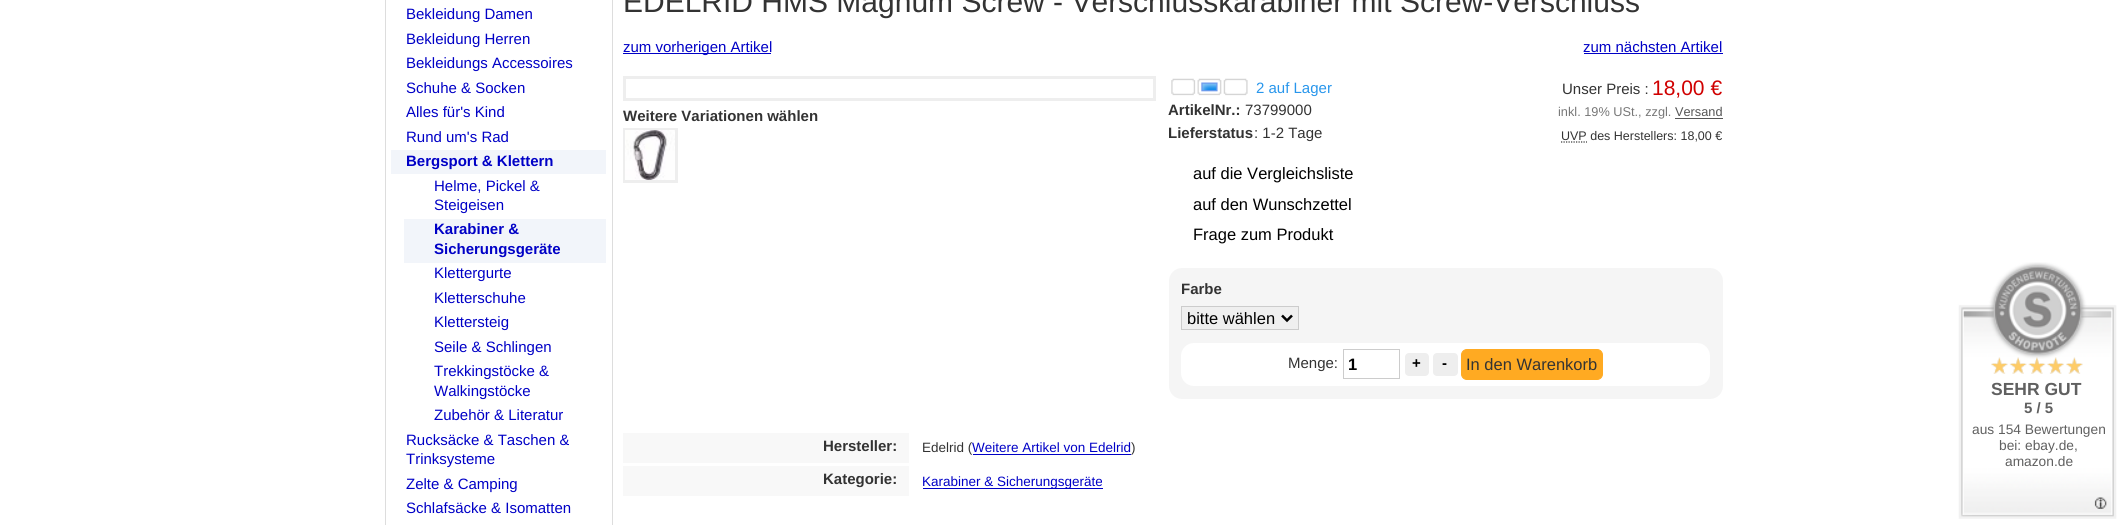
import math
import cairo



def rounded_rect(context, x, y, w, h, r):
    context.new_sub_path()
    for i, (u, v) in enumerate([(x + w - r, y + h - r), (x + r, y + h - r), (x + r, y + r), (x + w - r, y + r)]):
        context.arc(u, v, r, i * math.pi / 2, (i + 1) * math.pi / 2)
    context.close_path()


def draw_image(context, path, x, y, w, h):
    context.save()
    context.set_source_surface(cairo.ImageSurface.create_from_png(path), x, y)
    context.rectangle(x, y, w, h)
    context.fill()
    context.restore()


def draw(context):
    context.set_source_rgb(1, 1, 1)
    context.paint()
    context.rectangle(385.5, -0.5, 227, 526)
    context.set_source_rgb(221 / 255, 221 / 255, 221 / 255)
    context.set_line_width(1)
    context.stroke()
    context.set_source_rgb(242 / 255, 245 / 255, 250 / 255)
    context.rectangle(391, 150, 215, 24)
    context.fill()
    context.rectangle(404, 219, 202, 44)
    context.fill()
    context.set_source_rgb(0, 0, 198 / 255)
    context.rectangle(623, 53, 148, 1)
    context.fill()
    context.rectangle(1584, 53, 139, 1)
    context.fill()
    context.rectangle(624.5, 77.5, 530, 22)
    context.set_source_rgb(238 / 255, 238 / 255, 238 / 255)
    context.set_line_width(3)
    context.stroke()
    context.rectangle(624.5, 129.5, 52, 52)
    context.stroke()
    draw_image(context, "images/1.png", 625, 130, 50, 50)
    draw_image(context, "images/2.png", 1171, 78, 77, 18)
    context.set_source_rgb(85 / 255, 85 / 255, 85 / 255)
    context.rectangle(1675, 118, 48, 1)
    context.fill()
    context.new_path()
    context.move_to(1561, 142)
    context.line_to(1587, 142)
    context.set_source_rgb(51 / 255, 51 / 255, 51 / 255)
    context.set_line_width(1.2)
    context.set_dash([1.25, 1.25])
    context.stroke()
    context.set_source_rgb(245 / 255, 245 / 255, 245 / 255)
    rounded_rect(context, 1169, 268, 554, 131, 13)
    context.fill()
    context.set_source_rgb(239 / 255, 239 / 255, 239 / 255)
    context.rectangle(1181.5, 306.5, 117, 23)
    context.fill_preserve()
    context.set_source_rgb(204 / 255, 204 / 255, 204 / 255)
    context.set_line_width(1)
    context.set_dash([])
    context.stroke()
    context.new_path()
    context.move_to(1282, 315.5)
    context.line_to(1287, 320.5)
    context.line_to(1292, 315.5)
    context.set_source_rgb(0, 0, 0)
    context.set_line_width(2.5)
    context.stroke()
    context.set_source_rgb(1, 1, 1)
    rounded_rect(context, 1181, 343, 529, 43, 13)
    context.fill()
    context.rectangle(1343.5, 349.5, 56, 29)
    context.set_source_rgb(204 / 255, 204 / 255, 204 / 255)
    context.set_line_width(1)
    context.stroke()
    context.set_source_rgb(238 / 255, 238 / 255, 238 / 255)
    rounded_rect(context, 1405, 353, 24, 23, 4)
    context.fill()
    rounded_rect(context, 1433, 353, 25, 23, 4)
    context.fill()
    context.set_source_rgb(1, 170 / 255, 34 / 255)
    rounded_rect(context, 1461.5, 349.5, 141, 30, 5.5)
    context.fill_preserve()
    context.stroke()
    context.set_source_rgb(248 / 255, 248 / 255, 248 / 255)
    context.rectangle(623, 433, 286, 30)
    context.fill()
    context.set_source_rgb(0, 0, 198 / 255)
    context.rectangle(973, 454, 158, 1)
    context.fill()
    context.set_source_rgb(248 / 255, 248 / 255, 248 / 255)
    context.rectangle(623, 466, 286, 30)
    context.fill()
    context.set_source_rgb(0, 0, 198 / 255)
    context.rectangle(923, 488, 180, 1)
    context.fill()
    draw_image(context, "images/3.png", 1958, 262, 159, 257)
    draw_image(context, "images/4.png", 1991, 357, 92, 17)
    context.select_font_face("Liberation Sans")
    context.set_font_size(15)
    context.move_to(406, 19)
    context.show_text("Bekleidung Damen")
    context.move_to(406, 44)
    context.show_text("Bekleidung Herren")
    context.move_to(406, 68)
    context.show_text("Bekleidungs Accessoires")
    context.move_to(406, 93)
    context.show_text("Schuhe & Socken")
    context.move_to(406, 117)
    context.show_text("Alles für's Kind")
    context.move_to(406, 142)
    context.show_text("Rund um's Rad")
    context.select_font_face("Liberation Sans", cairo.FontSlant.NORMAL, cairo.FontWeight.BOLD)
    context.move_to(406, 166)
    context.show_text("Bergsport & Klettern")
    context.select_font_face("Liberation Sans")
    context.move_to(434, 191)
    context.show_text("Helme, Pickel &")
    context.move_to(434, 210)
    context.show_text("Steigeisen")
    context.select_font_face("Liberation Sans", cairo.FontSlant.NORMAL, cairo.FontWeight.BOLD)
    context.move_to(434, 234)
    context.show_text("Karabiner &")
    context.move_to(434, 254)
    context.show_text("Sicherungsgeräte")
    context.select_font_face("Liberation Sans")
    context.move_to(434, 278)
    context.show_text("Klettergurte")
    context.move_to(434, 303)
    context.show_text("Kletterschuhe")
    context.move_to(434, 327)
    context.show_text("Klettersteig")
    context.move_to(434, 352)
    context.show_text("Seile & Schlingen")
    context.move_to(434, 376)
    context.show_text("Trekkingstöcke &")
    context.move_to(434, 396)
    context.show_text("Walkingstöcke")
    context.move_to(434, 420)
    context.show_text("Zubehör & Literatur")
    context.move_to(406, 445)
    context.show_text("Rucksäcke & Taschen &")
    context.move_to(406, 464)
    context.show_text("Trinksysteme")
    context.move_to(406, 489)
    context.show_text("Zelte & Camping")
    context.move_to(406, 513)
    context.show_text("Schlafsäcke & Isomatten")
    context.set_font_size(30)
    context.set_source_rgb(51 / 255, 51 / 255, 51 / 255)
    context.move_to(623, 12)
    context.show_text("EDELRID HMS Magnum Screw - Verschlusskarabiner mit Screw-Verschluss")
    context.set_font_size(15)
    context.set_source_rgb(0, 0, 198 / 255)
    context.move_to(623, 52)
    context.show_text("zum vorherigen Artikel")
    context.move_to(1583, 52)
    context.show_text("zum nächsten Artikel")
    context.select_font_face("Liberation Sans", cairo.FontSlant.NORMAL, cairo.FontWeight.BOLD)
    context.set_source_rgb(51 / 255, 51 / 255, 51 / 255)
    context.move_to(623, 121)
    context.show_text("Weitere Variationen wählen")
    context.select_font_face("Liberation Sans")
    context.set_source_rgb(40 / 255, 150 / 255, 236 / 255)
    context.move_to(1256, 93)
    context.show_text("2 auf Lager")
    context.select_font_face("Liberation Sans", cairo.FontSlant.NORMAL, cairo.FontWeight.BOLD)
    context.set_source_rgb(51 / 255, 51 / 255, 51 / 255)
    context.move_to(1168, 115)
    context.show_text("ArtikelNr.:")
    context.select_font_face("Liberation Sans")
    context.move_to(1245, 115)
    context.show_text("73799000")
    context.select_font_face("Liberation Sans", cairo.FontSlant.NORMAL, cairo.FontWeight.BOLD)
    context.move_to(1168, 138)
    context.show_text("Lieferstatus")
    context.select_font_face("Liberation Sans")
    context.move_to(1254, 138)
    context.show_text(": 1-2 Tage")
    context.set_font_size(16.5)
    context.set_source_rgb(0, 0, 0)
    context.move_to(1193, 179)
    context.show_text("auf die Vergleichsliste")
    context.move_to(1193, 210)
    context.show_text("auf den Wunschzettel")
    context.move_to(1193, 240)
    context.show_text("Frage zum Produkt")
    context.set_font_size(15)
    context.set_source_rgb(51 / 255, 51 / 255, 51 / 255)
    context.move_to(1562, 94)
    context.show_text("Unser Preis :")
    context.set_font_size(21)
    context.set_source_rgb(208 / 255, 0, 0)
    context.move_to(1652, 95)
    context.show_text("18,00 €")
    context.set_font_size(12.75)
    context.set_source_rgb(119 / 255, 119 / 255, 119 / 255)
    context.move_to(1558, 116)
    context.show_text("inkl. 19% USt., zzgl.")
    context.set_source_rgb(85 / 255, 85 / 255, 85 / 255)
    context.move_to(1675, 116)
    context.show_text("Versand")
    context.set_font_size(12.5)
    context.set_source_rgb(51 / 255, 51 / 255, 51 / 255)
    context.move_to(1561, 140)
    context.show_text("UVP des Herstellers: 18,00 €")
    context.select_font_face("Liberation Sans", cairo.FontSlant.NORMAL, cairo.FontWeight.BOLD)
    context.set_font_size(15)
    context.move_to(1181, 294)
    context.show_text("Farbe")
    context.select_font_face("Liberation Sans")
    context.set_font_size(16.5)
    context.set_source_rgb(0, 0, 0)
    context.move_to(1187, 324)
    context.show_text("bitte wählen")
    context.set_font_size(15)
    context.set_source_rgb(51 / 255, 51 / 255, 51 / 255)
    context.move_to(1288, 368)
    context.show_text("Menge:")
    context.select_font_face("Liberation Sans", cairo.FontSlant.NORMAL, cairo.FontWeight.BOLD)
    context.set_font_size(16.5)
    context.set_source_rgb(0, 0, 0)
    context.move_to(1348, 370)
    context.show_text("1")
    context.set_font_size(15)
    context.move_to(1412, 368)
    context.show_text("+")
    context.move_to(1442, 368)
    context.show_text("-")
    context.select_font_face("Liberation Sans")
    context.set_font_size(16.5)
    context.set_source_rgb(51 / 255, 51 / 255, 51 / 255)
    context.move_to(1466, 370)
    context.show_text("In den Warenkorb")
    context.select_font_face("Liberation Sans", cairo.FontSlant.NORMAL, cairo.FontWeight.BOLD)
    context.set_font_size(15)
    context.move_to(823, 451)
    context.show_text("Hersteller:")
    context.select_font_face("Liberation Sans")
    context.set_font_size(13.5)
    context.move_to(922, 452)
    context.show_text("Edelrid (")
    context.set_source_rgb(0, 0, 198 / 255)
    context.move_to(972, 452)
    context.show_text("Weitere Artikel von Edelrid")
    context.set_source_rgb(51 / 255, 51 / 255, 51 / 255)
    context.move_to(1131, 452)
    context.show_text(")")
    context.select_font_face("Liberation Sans", cairo.FontSlant.NORMAL, cairo.FontWeight.BOLD)
    context.set_font_size(15)
    context.move_to(823, 484)
    context.show_text("Kategorie:")
    context.select_font_face("Liberation Sans")
    context.set_font_size(13.5)
    context.set_source_rgb(0, 0, 198 / 255)
    context.move_to(922, 486)
    context.show_text("Karabiner & Sicherungsgeräte")
    context.select_font_face("Liberation Sans", cairo.FontSlant.NORMAL, cairo.FontWeight.BOLD)
    context.set_font_size(17.5)
    context.set_source_rgb(96 / 255, 96 / 255, 96 / 255)
    context.move_to(1991, 395)
    context.show_text("SEHR GUT")
    context.set_font_size(15)
    context.move_to(2024, 413)
    context.show_text("5 / 5")
    context.select_font_face("Liberation Sans")
    context.set_font_size(13.75)
    context.move_to(1972, 434)
    context.show_text("aus 154 Bewertungen")
    context.move_to(1999, 450)
    context.show_text("bei: ebay.de,")
    context.move_to(2005, 466)
    context.show_text("amazon.de")


surface = cairo.ImageSurface(cairo.Format.RGB24, 2119, 525)
context = cairo.Context(surface)
options = cairo.FontOptions()
options.set_hint_metrics(cairo.HintMetrics.OFF)
options.set_hint_style(cairo.HintStyle.NONE)
context.set_font_options(options)
context.set_miter_limit(4)
draw(context)
surface.write_to_png("out.png")
